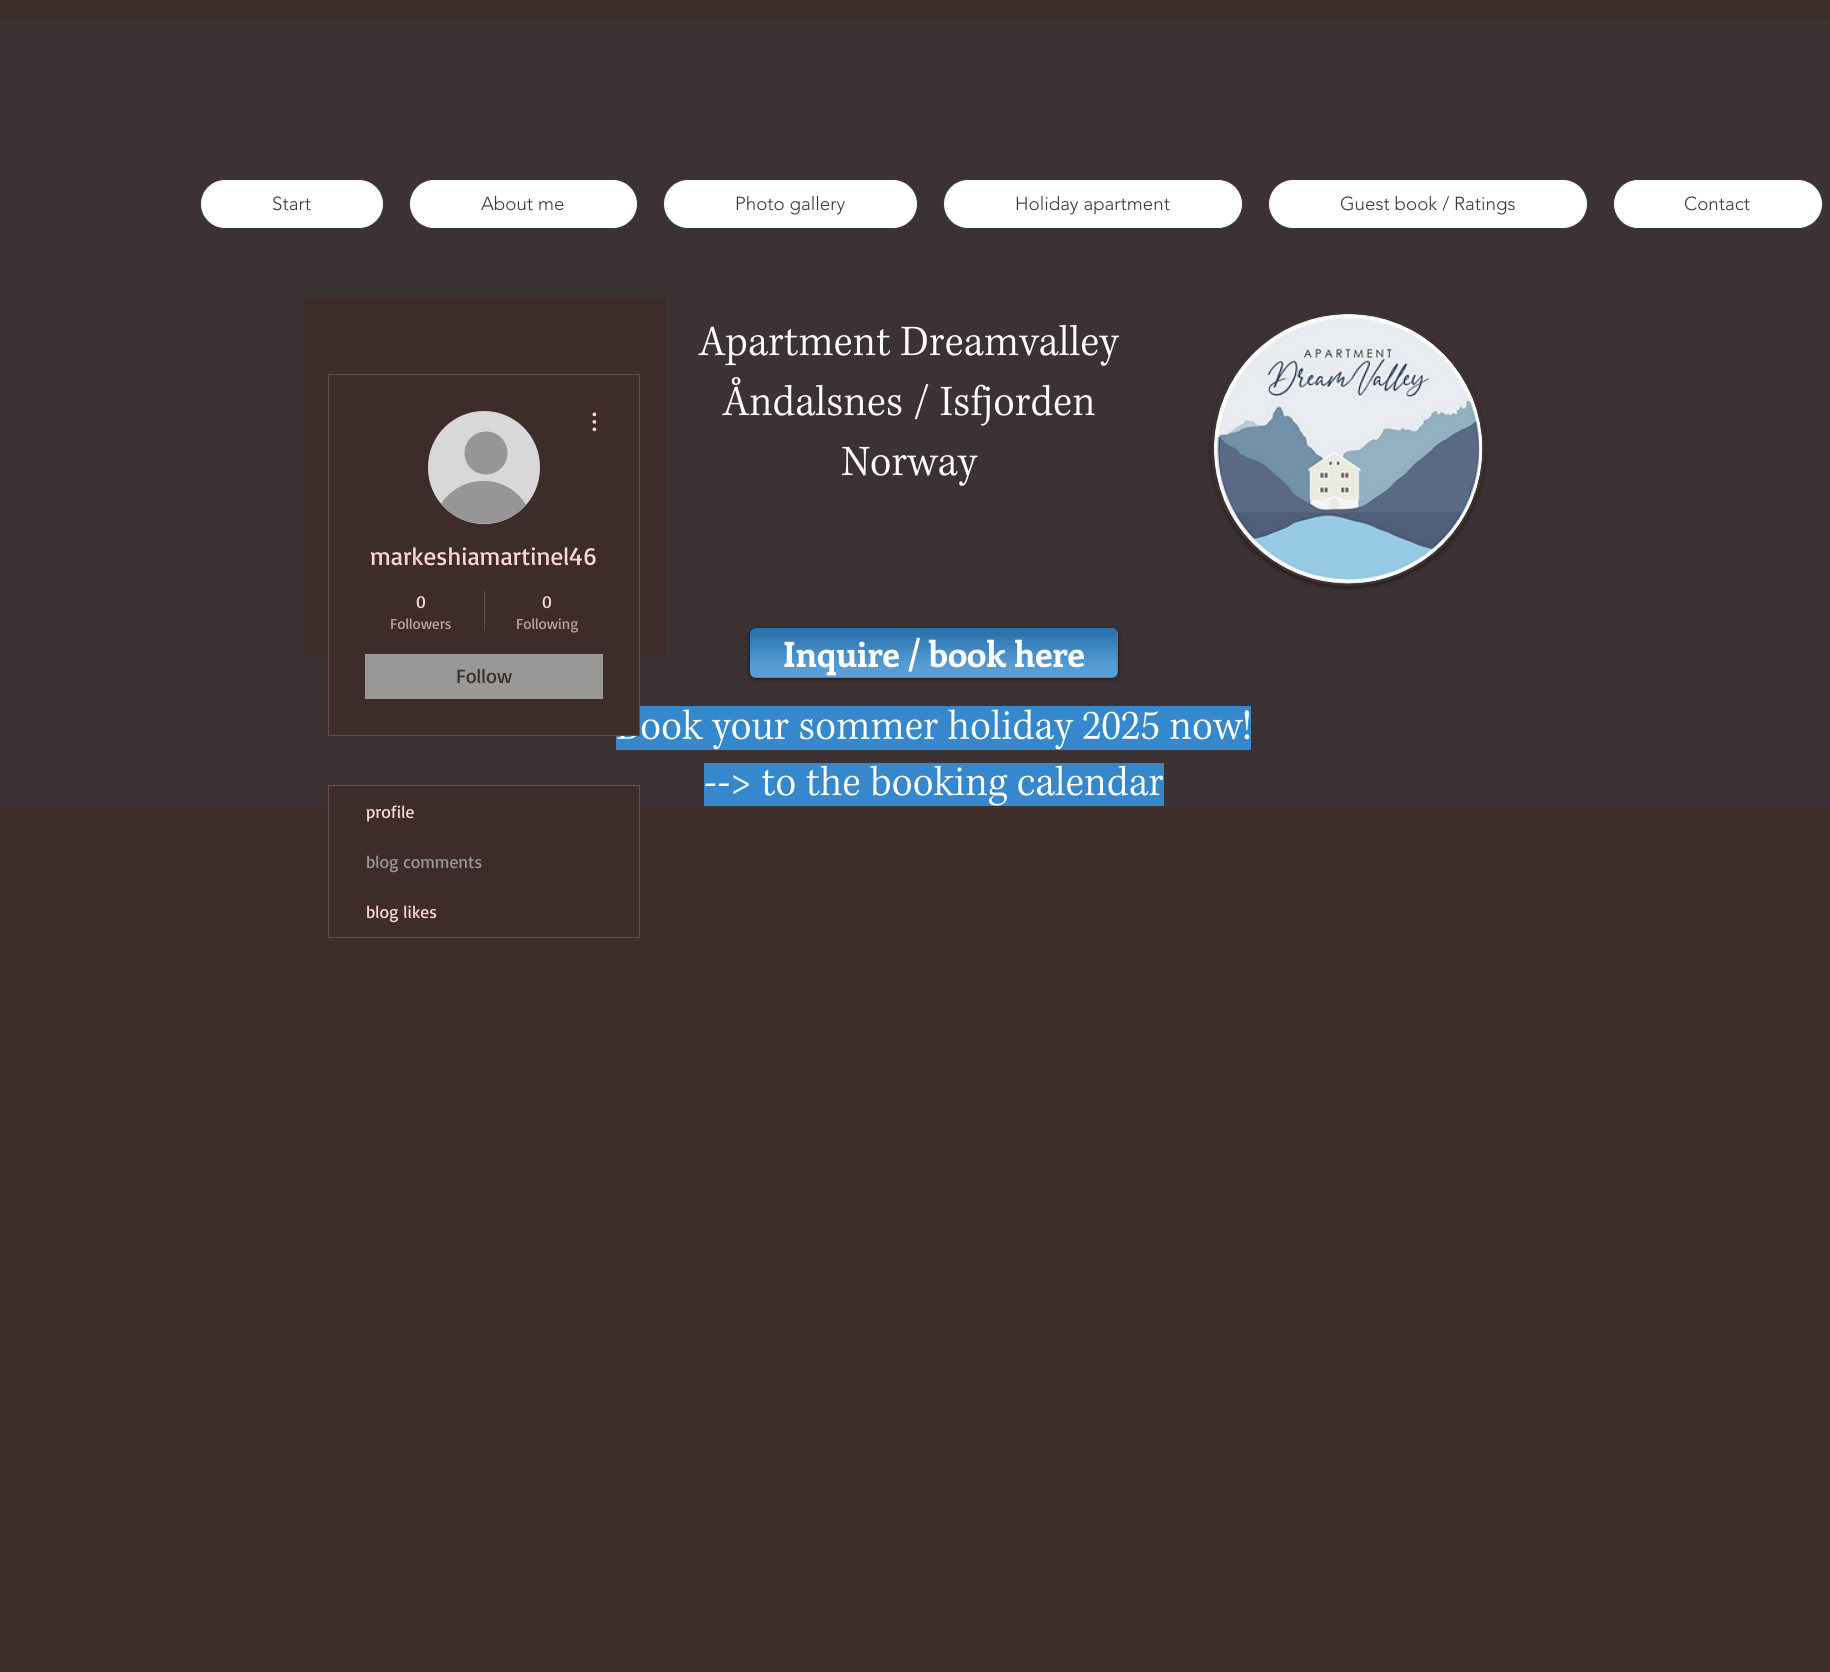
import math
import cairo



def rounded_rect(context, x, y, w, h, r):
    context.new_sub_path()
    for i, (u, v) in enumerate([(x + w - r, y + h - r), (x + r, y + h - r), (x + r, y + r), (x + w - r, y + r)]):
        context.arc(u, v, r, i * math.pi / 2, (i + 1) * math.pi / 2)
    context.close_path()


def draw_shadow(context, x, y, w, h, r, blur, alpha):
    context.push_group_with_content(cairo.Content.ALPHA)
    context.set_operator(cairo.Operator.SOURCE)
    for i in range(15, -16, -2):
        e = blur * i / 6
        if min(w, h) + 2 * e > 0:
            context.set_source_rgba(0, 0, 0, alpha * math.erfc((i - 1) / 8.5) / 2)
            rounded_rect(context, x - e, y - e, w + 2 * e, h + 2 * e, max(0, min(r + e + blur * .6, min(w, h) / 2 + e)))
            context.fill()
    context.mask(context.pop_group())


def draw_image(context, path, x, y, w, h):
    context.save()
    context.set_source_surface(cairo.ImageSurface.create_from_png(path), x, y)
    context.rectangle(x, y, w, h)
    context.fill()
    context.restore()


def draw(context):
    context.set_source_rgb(61 / 255, 44 / 255, 42 / 255)
    context.paint()
    context.set_source_rgb(61 / 255, 50 / 255, 51 / 255)
    context.rectangle(0, 20, 1830, 789)
    context.fill()
    context.set_source_rgb(1, 1, 1)
    rounded_rect(context, 200.5, 179.5, 183, 49, 24.5)
    context.fill_preserve()
    context.set_source_rgb(56 / 255, 56 / 255, 56 / 255)
    context.set_line_width(1)
    context.stroke()
    context.set_source_rgb(1, 1, 1)
    rounded_rect(context, 409.5, 179.5, 228, 49, 24.5)
    context.fill_preserve()
    context.set_source_rgb(56 / 255, 56 / 255, 56 / 255)
    context.stroke()
    context.set_source_rgb(1, 1, 1)
    rounded_rect(context, 663.5, 179.5, 254, 49, 24.5)
    context.fill_preserve()
    context.set_source_rgb(56 / 255, 56 / 255, 56 / 255)
    context.stroke()
    context.set_source_rgb(1, 1, 1)
    rounded_rect(context, 943.5, 179.5, 299, 49, 24.5)
    context.fill_preserve()
    context.set_source_rgb(56 / 255, 56 / 255, 56 / 255)
    context.stroke()
    context.set_source_rgb(1, 1, 1)
    rounded_rect(context, 1268.5, 179.5, 319, 49, 24.5)
    context.fill_preserve()
    context.set_source_rgb(56 / 255, 56 / 255, 56 / 255)
    context.stroke()
    context.set_source_rgb(1, 1, 1)
    rounded_rect(context, 1613.5, 179.5, 209, 49, 24.5)
    context.fill_preserve()
    context.set_source_rgb(56 / 255, 56 / 255, 56 / 255)
    context.stroke()
    draw_image(context, "images/1.png", 698, 324, 422, 42)
    draw_image(context, "images/2.png", 722, 377, 373, 49)
    draw_image(context, "images/3.png", 842, 446, 136, 40)
    context.save()
    context.set_fill_rule(cairo.FillRule.EVEN_ODD)
    context.new_path()
    context.move_to(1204, 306)
    context.line_to(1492, 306)
    context.line_to(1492, 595)
    context.line_to(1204, 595)
    context.close_path()
    context.move_to(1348, 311)
    context.curve_to(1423.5, 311, 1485, 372.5, 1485, 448)
    context.line_to(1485, 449)
    context.curve_to(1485, 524.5, 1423.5, 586, 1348, 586)
    context.curve_to(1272.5, 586, 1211, 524.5, 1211, 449)
    context.line_to(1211, 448)
    context.curve_to(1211, 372.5, 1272.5, 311, 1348, 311)
    context.close_path()
    context.clip()
    context.set_source_rgb(0, 0, 0)
    draw_shadow(context, 1211, 313, 274, 275, 137, 2, 0.5)
    context.restore()
    draw_image(context, "images/4.png", 1214, 314, 269, 270)
    context.set_source_rgb(0, 0, 0)
    draw_shadow(context, 750, 629, 368, 50, 6, 2.5, 0.6)
    context.set_source_rgb(53 / 255, 136 / 255, 204 / 255)
    rounded_rect(context, 750, 628, 368, 50, 6)
    context.fill()
    draw_image(context, "images/5.png", 750, 628, 368, 31)
    draw_image(context, "images/6.png", 750, 637, 368, 41)
    context.rectangle(616, 706, 635, 44)
    context.fill()
    draw_image(context, "images/7.png", 617, 709, 633, 41)
    context.rectangle(704, 763, 460, 43)
    context.fill()
    draw_image(context, "images/8.png", 705, 765, 459, 41)
    context.set_source_rgb(61 / 255, 44 / 255, 42 / 255)
    context.rectangle(303, 299, 363, 356)
    context.fill()
    context.rectangle(329, 655, 310, 80)
    context.fill()
    context.rectangle(328.5, 374.5, 311, 361)
    context.set_source_rgb(99 / 255, 78 / 255, 76 / 255)
    context.stroke()
    context.set_source_rgb(216 / 255, 216 / 255, 216 / 255)
    rounded_rect(context, 428, 411, 112, 113, 56)
    context.fill()
    context.set_source_rgb(150 / 255, 150 / 255, 150 / 255)
    context.arc(486, 453, 21.5, 0, 2 * math.pi)
    context.fill()
    context.new_path()
    context.move_to(526, 505)
    context.curve_to(504, 530, 463, 530, 441, 504)
    context.curve_to(461, 473, 507, 473, 526, 505)
    context.close_path()
    context.fill()
    draw_image(context, "images/9.png", 592, 412, 5, 20)
    context.set_source_rgb(99 / 255, 78 / 255, 76 / 255)
    context.rectangle(484, 591, 1, 40)
    context.fill()
    context.set_source_rgb(152 / 255, 152 / 255, 151 / 255)
    context.rectangle(365, 654, 238, 45)
    context.fill()
    context.rectangle(328.5, 785.5, 311, 152)
    context.set_source_rgba(251 / 255, 216 / 255, 212 / 255, 0.2)
    context.stroke()
    context.set_source_rgb(61 / 255, 44 / 255, 42 / 255)
    context.rectangle(329, 786, 310, 23)
    context.fill()
    context.select_font_face("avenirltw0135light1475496 Light")
    context.set_font_size(18.75)
    context.set_source_rgb(56 / 255, 56 / 255, 56 / 255)
    context.move_to(272, 210)
    context.show_text("Start")
    context.move_to(481, 210)
    context.show_text("About me")
    context.move_to(735, 210)
    context.show_text("Photo gallery")
    context.move_to(1015, 210)
    context.show_text("Holiday apartment")
    context.move_to(1340, 210)
    context.show_text("Guest book / Ratings")
    context.move_to(1684, 210)
    context.show_text("Contact")
    context.select_font_face("Enriqueta", cairo.FontSlant.NORMAL, cairo.FontWeight.BOLD)
    context.set_font_size(35)
    context.set_source_rgb(254 / 255, 253 / 255, 253 / 255)
    context.move_to(783, 667)
    context.show_text("Inquire / book here")
    context.select_font_face("Basic")
    context.set_font_size(25)
    context.set_source_rgb(251 / 255, 216 / 255, 212 / 255)
    context.move_to(370, 565)
    context.show_text("markeshiamartinel46")
    context.set_font_size(17.5)
    context.move_to(416, 608)
    context.show_text("0")
    context.set_font_size(15)
    context.set_source_rgb(194 / 255, 164 / 255, 161 / 255)
    context.move_to(390, 629)
    context.show_text("Followers")
    context.set_font_size(17.5)
    context.set_source_rgb(251 / 255, 216 / 255, 212 / 255)
    context.move_to(542, 608)
    context.show_text("0")
    context.set_font_size(15)
    context.set_source_rgb(194 / 255, 164 / 255, 161 / 255)
    context.move_to(516, 629)
    context.show_text("Following")
    context.set_font_size(20)
    context.set_source_rgb(61 / 255, 44 / 255, 42 / 255)
    context.move_to(456, 683)
    context.show_text("Follow")
    context.set_font_size(17.5)
    context.set_source_rgb(251 / 255, 216 / 255, 212 / 255)
    context.move_to(366, 818)
    context.show_text("profile")
    context.set_source_rgb(152 / 255, 152 / 255, 151 / 255)
    context.move_to(366, 868)
    context.show_text("blog comments")
    context.set_source_rgb(251 / 255, 216 / 255, 212 / 255)
    context.move_to(366, 918)
    context.show_text("blog likes")


surface = cairo.ImageSurface(cairo.Format.RGB24, 1830, 1672)
context = cairo.Context(surface)
options = cairo.FontOptions()
options.set_hint_metrics(cairo.HintMetrics.OFF)
options.set_hint_style(cairo.HintStyle.NONE)
context.set_font_options(options)
context.set_miter_limit(4)
draw(context)
surface.write_to_png("out.png")
